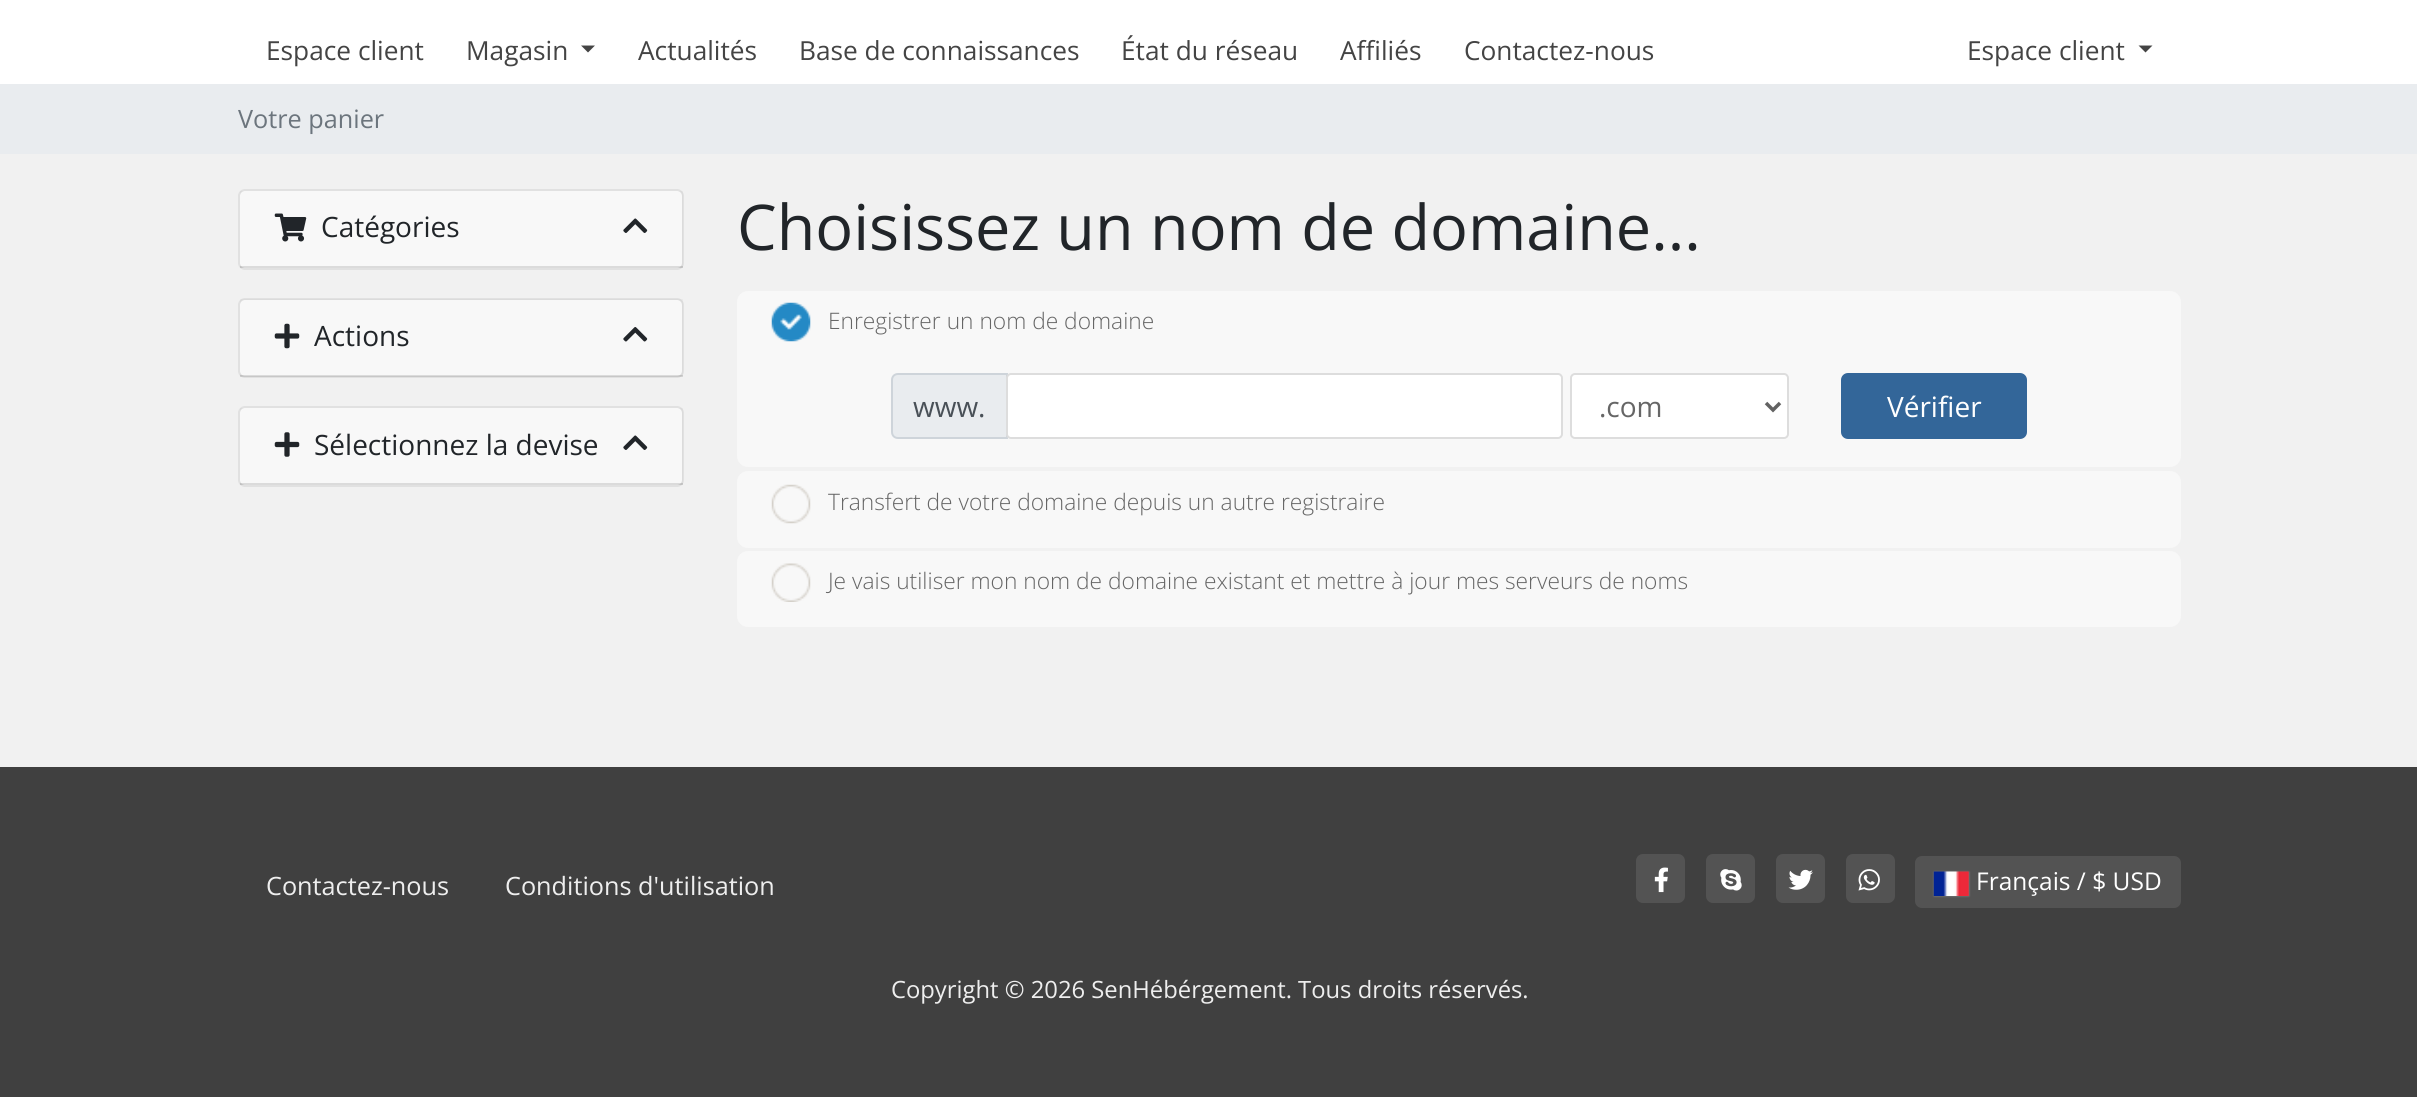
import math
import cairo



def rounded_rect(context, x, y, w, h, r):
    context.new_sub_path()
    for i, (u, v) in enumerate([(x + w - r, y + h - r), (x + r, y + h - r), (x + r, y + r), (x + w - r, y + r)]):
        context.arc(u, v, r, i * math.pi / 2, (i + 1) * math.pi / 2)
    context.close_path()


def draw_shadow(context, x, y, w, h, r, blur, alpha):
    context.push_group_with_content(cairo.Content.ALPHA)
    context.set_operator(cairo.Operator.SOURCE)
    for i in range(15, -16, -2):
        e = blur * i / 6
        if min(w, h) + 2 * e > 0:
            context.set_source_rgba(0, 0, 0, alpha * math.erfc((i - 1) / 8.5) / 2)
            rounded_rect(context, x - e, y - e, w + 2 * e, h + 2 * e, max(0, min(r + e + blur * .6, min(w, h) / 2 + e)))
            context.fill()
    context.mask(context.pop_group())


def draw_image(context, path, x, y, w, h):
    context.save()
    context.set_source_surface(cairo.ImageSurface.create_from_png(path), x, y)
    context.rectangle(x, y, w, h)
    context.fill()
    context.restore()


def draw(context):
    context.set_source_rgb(241 / 255, 241 / 255, 241 / 255)
    context.paint()
    context.set_source_rgb(1, 1, 1)
    context.rectangle(0, 0, 2417, 84)
    context.fill()
    context.set_source_rgb(68 / 255, 68 / 255, 68 / 255)
    context.new_path()
    context.move_to(581, 45.5)
    context.line_to(595, 45.5)
    context.line_to(588, 52.5)
    context.close_path()
    context.fill()
    context.new_path()
    context.move_to(2138.5, 45.5)
    context.line_to(2152.5, 45.5)
    context.line_to(2145.5, 52.5)
    context.close_path()
    context.fill()
    context.set_source_rgb(233 / 255, 236 / 255, 239 / 255)
    context.rectangle(0, 84, 2417, 70)
    context.fill()
    context.set_source_rgb(1, 1, 1)
    rounded_rect(context, 238, 189, 446, 81, 7)
    context.fill()
    rounded_rect(context, 239, 190, 444, 79, 6)
    context.set_source_rgba(0, 0, 0, 0.12)
    context.stroke()
    context.set_source_rgba(0, 0, 0, 0.03)
    context.rectangle(240, 191, 443, 77)
    context.fill()
    context.set_source_rgba(0, 0, 0, 0.12)
    context.rectangle(240, 266, 443, 2)
    context.fill()
    draw_image(context, "images/1.png", 274, 213, 33, 29)
    draw_image(context, "images/2.png", 623, 218, 25, 15)
    context.set_source_rgb(1, 1, 1)
    rounded_rect(context, 238, 298, 446, 80, 7)
    context.fill()
    rounded_rect(context, 239, 299, 444, 78, 6)
    context.set_source_rgba(0, 0, 0, 0.12)
    context.stroke()
    context.set_source_rgba(0, 0, 0, 0.03)
    context.rectangle(240, 299, 443, 77)
    context.fill()
    context.set_source_rgba(0, 0, 0, 0.12)
    context.rectangle(240, 375, 443, 2)
    context.fill()
    draw_image(context, "images/3.png", 274, 323, 26, 26)
    draw_image(context, "images/4.png", 623, 327, 25, 15)
    context.set_source_rgb(1, 1, 1)
    rounded_rect(context, 238, 406, 446, 81, 7)
    context.fill()
    rounded_rect(context, 239, 407, 444, 79, 6)
    context.set_source_rgba(0, 0, 0, 0.12)
    context.stroke()
    context.set_source_rgba(0, 0, 0, 0.03)
    context.rectangle(240, 408, 443, 77)
    context.fill()
    context.set_source_rgba(0, 0, 0, 0.12)
    context.rectangle(240, 483, 443, 2)
    context.fill()
    draw_image(context, "images/5.png", 274, 432, 26, 25)
    draw_image(context, "images/2.png", 623, 435, 25, 15)
    context.set_source_rgb(248 / 255, 248 / 255, 248 / 255)
    rounded_rect(context, 737, 291, 1444, 176, 11)
    context.fill()
    draw_image(context, "images/6.png", 771, 302, 40, 40)
    context.set_source_rgb(233 / 255, 236 / 255, 239 / 255)
    context.new_path()
    context.move_to(898, 374)
    context.line_to(1007, 374)
    context.line_to(1007, 438)
    context.line_to(898, 438)
    context.curve_to(894.5, 438, 892, 435.5, 892, 432)
    context.line_to(892, 380)
    context.curve_to(892, 376.5, 894.5, 374, 898, 374)
    context.close_path()
    context.fill_preserve()
    context.set_source_rgb(206 / 255, 212 / 255, 218 / 255)
    context.stroke()
    context.set_source_rgb(1, 1, 1)
    rounded_rect(context, 1007, 374, 555, 64, 4)
    context.fill_preserve()
    context.set_source_rgb(221 / 255, 221 / 255, 221 / 255)
    context.stroke()
    context.set_source_rgb(1, 1, 1)
    rounded_rect(context, 1571, 374, 217, 64, 4)
    context.fill_preserve()
    context.set_source_rgb(221 / 255, 221 / 255, 221 / 255)
    context.stroke()
    context.new_path()
    context.move_to(1766, 403)
    context.line_to(1773, 410)
    context.line_to(1780, 403)
    context.set_source_rgb(98 / 255, 98 / 255, 98 / 255)
    context.set_line_width(3.5)
    context.stroke()
    context.set_source_rgb(51 / 255, 102 / 255, 153 / 255)
    rounded_rect(context, 1842, 374, 184, 64, 6)
    context.fill_preserve()
    context.set_line_width(2)
    context.stroke()
    context.set_source_rgb(248 / 255, 248 / 255, 248 / 255)
    rounded_rect(context, 737, 471, 1444, 77, 11)
    context.fill()
    draw_image(context, "images/7.png", 771, 484, 40, 40)
    rounded_rect(context, 737, 551, 1444, 76, 11)
    context.fill()
    draw_image(context, "images/8.png", 771, 563, 40, 39)
    context.set_source_rgb(64 / 255, 64 / 255, 64 / 255)
    context.rectangle(0, 767, 2417, 330)
    context.fill()
    context.set_source_rgb(83 / 255, 83 / 255, 83 / 255)
    rounded_rect(context, 1636, 854, 49, 49, 7)
    context.fill()
    draw_image(context, "images/9.png", 1654, 867, 14, 26)
    rounded_rect(context, 1706, 854, 49, 49, 7)
    context.fill()
    draw_image(context, "images/10.png", 1720, 869, 22, 22)
    rounded_rect(context, 1776, 854, 49, 49, 7)
    context.fill()
    draw_image(context, "images/11.png", 1788, 869, 25, 21)
    rounded_rect(context, 1846, 854, 49, 49, 7)
    context.fill()
    draw_image(context, "images/12.png", 1858, 869, 22, 22)
    rounded_rect(context, 1915, 856, 266, 52, 7)
    context.fill()
    context.set_source_rgb(136 / 255, 136 / 255, 136 / 255)
    draw_shadow(context, 1934, 872, 35, 24, 0, 1, 1)
    draw_image(context, "images/13.png", 1933, 871, 36, 25)
    context.select_font_face("Open Sans")
    context.set_font_size(26.25)
    context.set_source_rgb(68 / 255, 68 / 255, 68 / 255)
    context.move_to(266, 60)
    context.show_text("Espace client")
    context.move_to(466, 60)
    context.show_text("Magasin")
    context.move_to(638, 60)
    context.show_text("Actualités")
    context.move_to(799, 60)
    context.show_text("Base de connaissances")
    context.move_to(1121, 60)
    context.show_text("État du réseau")
    context.move_to(1340, 60)
    context.show_text("Affiliés")
    context.move_to(1464, 60)
    context.show_text("Contactez-nous")
    context.move_to(1967, 60)
    context.show_text("Espace client")
    context.set_font_size(25.25)
    context.set_source_rgb(108 / 255, 117 / 255, 125 / 255)
    context.move_to(238, 128)
    context.show_text("Votre panier")
    context.set_font_size(28)
    context.set_source_rgb(33 / 255, 37 / 255, 41 / 255)
    context.move_to(321, 237)
    context.show_text("Catégories")
    context.move_to(314, 346)
    context.show_text("Actions")
    context.move_to(314, 455)
    context.show_text("Sélectionnez la devise")
    context.set_font_size(63)
    context.move_to(737, 250)
    context.show_text("Choisissez un nom de domaine...")
    context.select_font_face("Open Sans Light")
    context.set_font_size(22.75)
    context.set_source_rgb(102 / 255, 102 / 255, 102 / 255)
    context.move_to(828, 329)
    context.show_text("Enregistrer un nom de domaine")
    context.select_font_face("Open Sans")
    context.set_font_size(28)
    context.set_source_rgb(73 / 255, 80 / 255, 87 / 255)
    context.move_to(913, 417)
    context.show_text("www.")
    context.set_source_rgb(102 / 255, 102 / 255, 102 / 255)
    context.move_to(1599, 417)
    context.show_text(".com")
    context.set_source_rgb(1, 1, 1)
    context.move_to(1887, 417)
    context.show_text("Vérifier")
    context.select_font_face("Open Sans Light")
    context.set_font_size(22.75)
    context.set_source_rgb(102 / 255, 102 / 255, 102 / 255)
    context.move_to(828, 510)
    context.show_text("Transfert de votre domaine depuis un autre registraire")
    context.move_to(828, 589)
    context.show_text("Je vais utiliser mon nom de domaine existant et mettre à jour mes serveurs de noms")
    context.select_font_face("Open Sans")
    context.set_font_size(25.25)
    context.set_source_rgb(238 / 255, 238 / 255, 238 / 255)
    context.move_to(266, 895)
    context.show_text("Contactez-nous")
    context.move_to(505, 895)
    context.show_text("Conditions d'utilisation")
    context.set_font_size(24.5)
    context.set_source_rgb(1, 1, 1)
    context.move_to(1976, 890)
    context.show_text("Français / $ USD")
    context.set_font_size(23.8)
    context.set_source_rgb(238 / 255, 238 / 255, 238 / 255)
    context.move_to(891, 998)
    context.show_text("Copyright © 2026 SenHébérgement. Tous droits réservés.")


surface = cairo.ImageSurface(cairo.Format.RGB24, 2417, 1097)
context = cairo.Context(surface)
options = cairo.FontOptions()
options.set_hint_metrics(cairo.HintMetrics.OFF)
options.set_hint_style(cairo.HintStyle.NONE)
context.set_font_options(options)
context.set_miter_limit(4)
draw(context)
surface.write_to_png("out.png")
